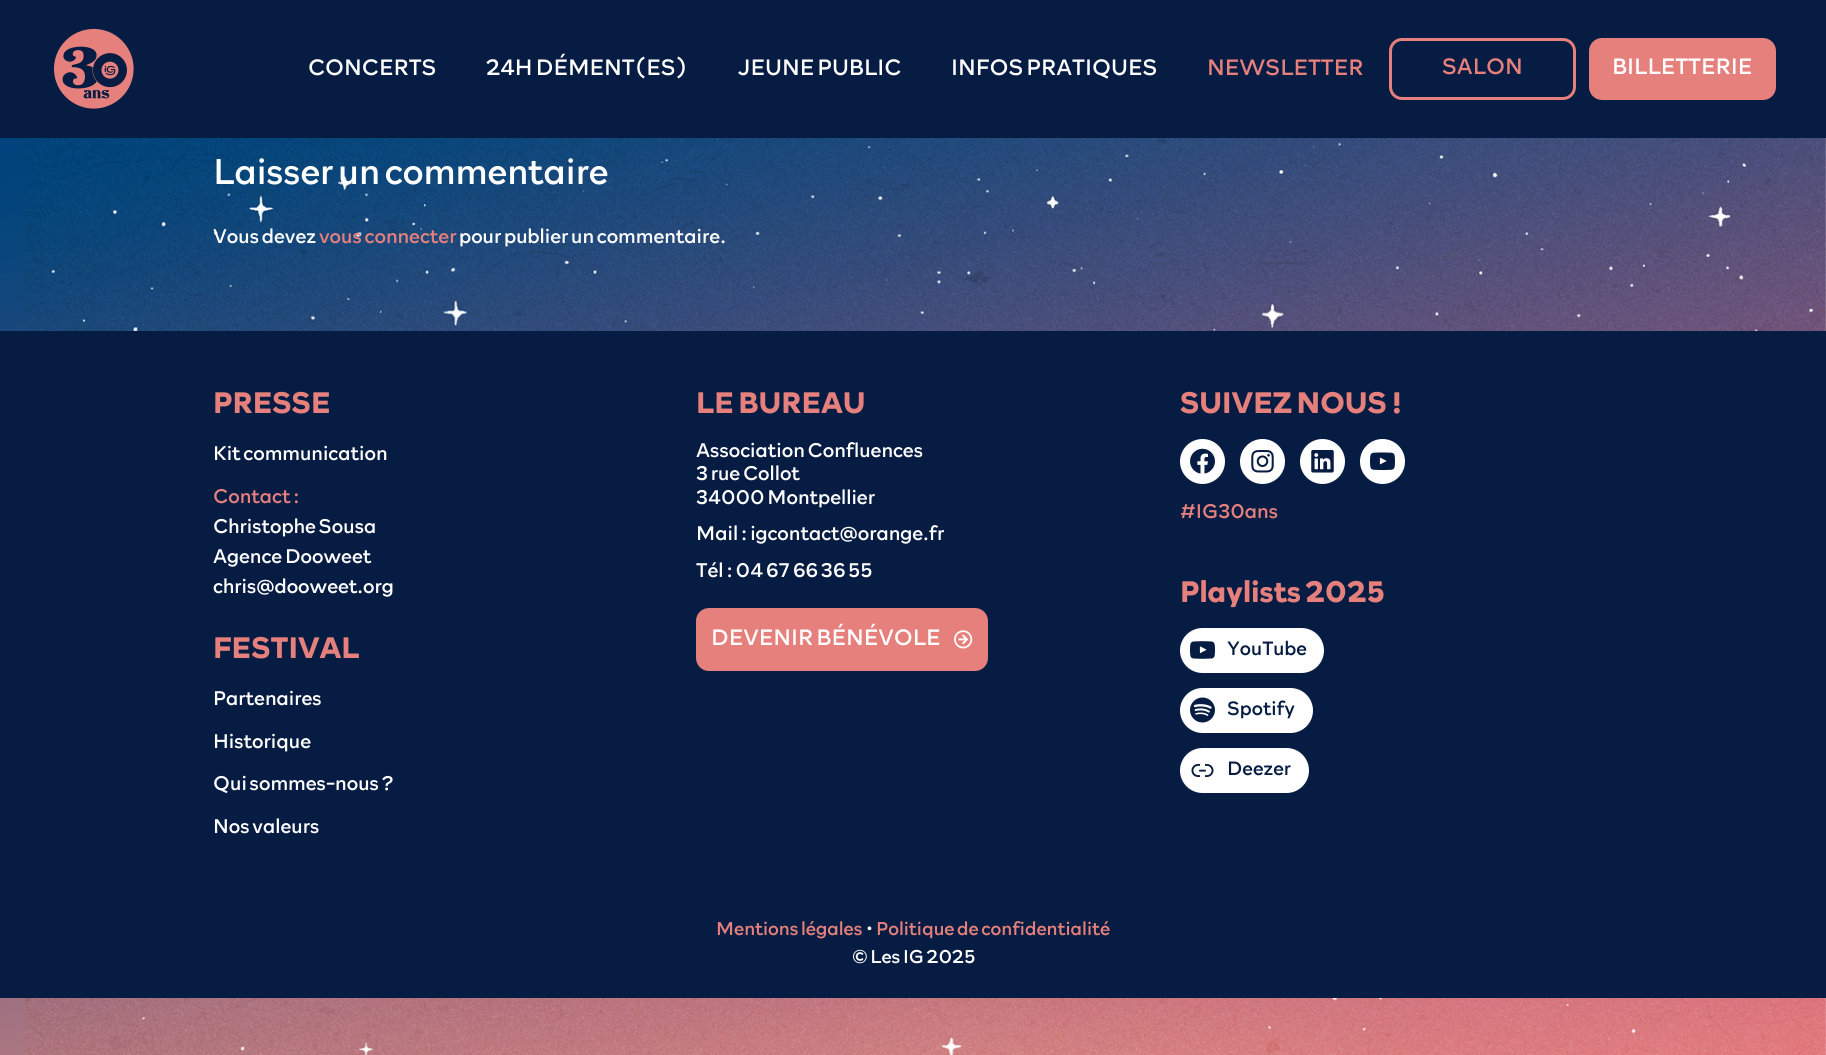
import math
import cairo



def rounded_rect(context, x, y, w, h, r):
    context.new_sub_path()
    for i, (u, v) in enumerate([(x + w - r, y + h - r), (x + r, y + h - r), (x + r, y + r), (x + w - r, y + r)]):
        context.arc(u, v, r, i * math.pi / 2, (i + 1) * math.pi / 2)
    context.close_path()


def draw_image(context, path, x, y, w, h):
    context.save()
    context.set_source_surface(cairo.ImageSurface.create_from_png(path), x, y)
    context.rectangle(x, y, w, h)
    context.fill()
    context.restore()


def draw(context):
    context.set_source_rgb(1, 1, 1)
    context.paint()
    draw_image(context, "images/1.png", 0, 138, 1826, 917)
    context.set_source_rgb(7 / 255, 28 / 255, 66 / 255)
    context.rectangle(0, 0, 1826, 138)
    context.fill()
    draw_image(context, "images/2.png", 53, 28, 81, 81)
    rounded_rect(context, 1390.5, 39.5, 184, 59, 11.5)
    context.set_source_rgb(230 / 255, 128 / 255, 124 / 255)
    context.set_line_width(3)
    context.stroke()
    rounded_rect(context, 1589, 38, 187, 62, 13)
    context.fill()
    context.set_source_rgb(7 / 255, 28 / 255, 66 / 255)
    context.rectangle(0, 331, 1826, 667)
    context.fill()
    context.set_source_rgb(230 / 255, 128 / 255, 124 / 255)
    rounded_rect(context, 697.5, 609.5, 289, 60, 11.5)
    context.fill_preserve()
    context.stroke()
    draw_image(context, "images/3.png", 954, 630, 19, 19)
    context.set_source_rgb(1, 1, 1)
    context.arc(1202.5, 461.5, 22.5, 0, 2 * math.pi)
    context.fill()
    draw_image(context, "images/4.png", 1190, 448, 25, 26)
    context.arc(1262.5, 461.5, 22.5, 0, 2 * math.pi)
    context.fill()
    draw_image(context, "images/5.png", 1251, 450, 23, 23)
    context.arc(1322.5, 461.5, 22.5, 0, 2 * math.pi)
    context.fill()
    draw_image(context, "images/6.png", 1311, 450, 23, 23)
    context.arc(1382.5, 461.5, 22.5, 0, 2 * math.pi)
    context.fill()
    draw_image(context, "images/7.png", 1370, 452, 25, 19)
    rounded_rect(context, 1180, 628, 144, 45, 22.5)
    context.fill()
    draw_image(context, "images/8.png", 1190, 641, 25, 18)
    rounded_rect(context, 1180, 688, 133, 45, 22.5)
    context.fill()
    draw_image(context, "images/9.png", 1190, 697, 25, 26)
    rounded_rect(context, 1180, 748, 129, 45, 22.5)
    context.fill()
    draw_image(context, "images/10.png", 1191, 764, 23, 13)
    context.select_font_face("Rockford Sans")
    context.set_font_size(22.5)
    context.move_to(308, 75)
    context.show_text("CONCERTS")
    context.move_to(486, 75)
    context.show_text("24H DÉMENT(ES)")
    context.move_to(738, 75)
    context.show_text("JEUNE PUBLIC")
    context.move_to(951, 75)
    context.show_text("INFOS PRATIQUES")
    context.set_source_rgb(230 / 255, 128 / 255, 124 / 255)
    context.move_to(1207, 75)
    context.show_text("NEWSLETTER")
    context.move_to(1442, 74)
    context.show_text("SALON")
    context.set_source_rgb(1, 1, 1)
    context.move_to(1612, 74)
    context.show_text("BILLETTERIE")
    context.set_font_size(36.25)
    context.move_to(213, 184)
    context.show_text("Laisser un commentaire")
    context.set_font_size(20)
    context.move_to(213, 243)
    context.show_text("Vous devez")
    context.set_source_rgb(230 / 255, 128 / 255, 124 / 255)
    context.move_to(319, 243)
    context.show_text("vous connecter")
    context.set_source_rgb(1, 1, 1)
    context.move_to(459, 243)
    context.show_text("pour publier un commentaire.")
    context.select_font_face("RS", cairo.FontSlant.NORMAL, cairo.FontWeight.BOLD)
    context.set_font_size(30)
    context.set_source_rgb(230 / 255, 128 / 255, 124 / 255)
    context.move_to(213, 413)
    context.show_text("PRESSE")
    context.select_font_face("Rockford Sans")
    context.set_font_size(20)
    context.set_source_rgb(1, 1, 1)
    context.move_to(213, 460)
    context.show_text("Kit communication")
    context.set_source_rgb(230 / 255, 128 / 255, 124 / 255)
    context.move_to(213, 503)
    context.show_text("Contact :")
    context.set_source_rgb(1, 1, 1)
    context.move_to(213, 533)
    context.show_text("Christophe Sousa")
    context.move_to(213, 563)
    context.show_text("Agence Dooweet")
    context.move_to(213, 593)
    context.show_text("chris@dooweet.org")
    context.select_font_face("RS", cairo.FontSlant.NORMAL, cairo.FontWeight.BOLD)
    context.set_font_size(30)
    context.set_source_rgb(230 / 255, 128 / 255, 124 / 255)
    context.move_to(213, 658)
    context.show_text("FESTIVAL")
    context.select_font_face("Rockford Sans")
    context.set_font_size(20)
    context.set_source_rgb(1, 1, 1)
    context.move_to(213, 705)
    context.show_text("Partenaires")
    context.move_to(213, 748)
    context.show_text("Historique")
    context.move_to(213, 790)
    context.show_text("Qui sommes-nous ?")
    context.move_to(213, 833)
    context.show_text("Nos valeurs")
    context.select_font_face("RS", cairo.FontSlant.NORMAL, cairo.FontWeight.BOLD)
    context.set_font_size(30)
    context.set_source_rgb(230 / 255, 128 / 255, 124 / 255)
    context.move_to(696, 413)
    context.show_text("LE BUREAU")
    context.select_font_face("Rockford Sans")
    context.set_font_size(20)
    context.set_source_rgb(1, 1, 1)
    context.move_to(696, 457)
    context.show_text("Association Confluences")
    context.move_to(696, 480)
    context.show_text("3 rue Collot")
    context.move_to(696, 504)
    context.show_text("34000 Montpellier")
    context.move_to(696, 540)
    context.show_text("Mail : igcontact@orange.fr")
    context.move_to(696, 577)
    context.show_text("Tél : 04 67 66 36 55")
    context.set_font_size(22.5)
    context.move_to(711, 645)
    context.show_text("DEVENIR BÉNÉVOLE")
    context.select_font_face("RS", cairo.FontSlant.NORMAL, cairo.FontWeight.BOLD)
    context.set_font_size(30)
    context.set_source_rgb(230 / 255, 128 / 255, 124 / 255)
    context.move_to(1180, 413)
    context.show_text("SUIVEZ NOUS !")
    context.select_font_face("Rockford Sans")
    context.set_font_size(20)
    context.move_to(1180, 518)
    context.show_text("#IG30ans")
    context.select_font_face("RS", cairo.FontSlant.NORMAL, cairo.FontWeight.BOLD)
    context.set_font_size(30)
    context.move_to(1180, 602)
    context.show_text("Playlists 2025")
    context.select_font_face("Rockford Sans")
    context.set_font_size(19.5)
    context.set_source_rgb(7 / 255, 28 / 255, 66 / 255)
    context.move_to(1227, 655)
    context.show_text("YouTube")
    context.move_to(1227, 715)
    context.show_text("Spotify")
    context.move_to(1227, 775)
    context.show_text("Deezer")
    context.set_font_size(18.75)
    context.set_source_rgb(230 / 255, 128 / 255, 124 / 255)
    context.move_to(716, 935)
    context.show_text("Mentions légales")
    context.set_source_rgb(1, 1, 1)
    context.move_to(865, 935)
    context.show_text("•")
    context.set_source_rgb(230 / 255, 128 / 255, 124 / 255)
    context.move_to(876, 935)
    context.show_text("Politique de confidentialité")
    context.set_source_rgb(1, 1, 1)
    context.move_to(852, 963)
    context.show_text("© Les IG 2025")


surface = cairo.ImageSurface(cairo.Format.RGB24, 1826, 1055)
context = cairo.Context(surface)
options = cairo.FontOptions()
options.set_hint_metrics(cairo.HintMetrics.OFF)
options.set_hint_style(cairo.HintStyle.NONE)
context.set_font_options(options)
context.set_miter_limit(4)
draw(context)
surface.write_to_png("out.png")
